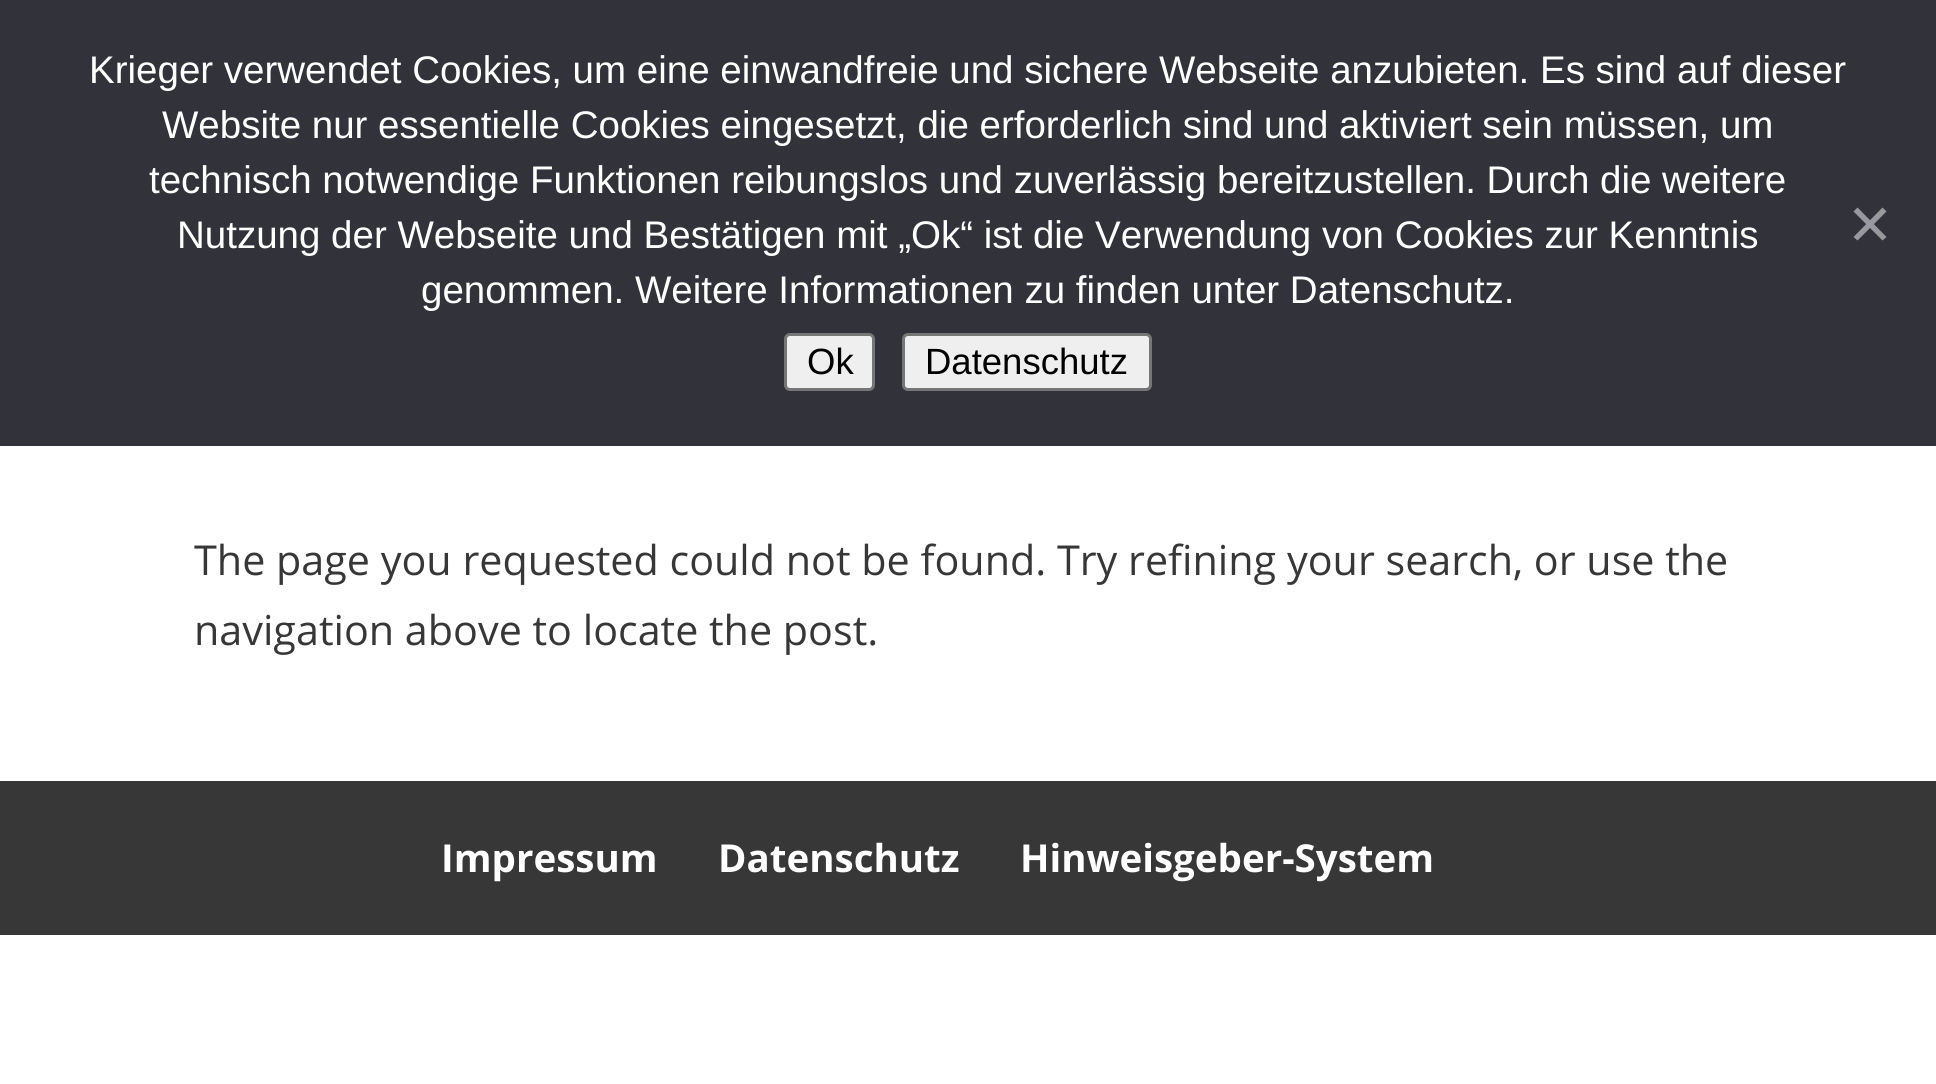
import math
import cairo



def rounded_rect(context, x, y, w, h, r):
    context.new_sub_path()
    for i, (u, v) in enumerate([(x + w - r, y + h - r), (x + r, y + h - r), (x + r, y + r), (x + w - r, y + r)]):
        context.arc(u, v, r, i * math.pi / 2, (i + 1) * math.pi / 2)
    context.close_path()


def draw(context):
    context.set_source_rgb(1, 1, 1)
    context.paint()
    context.set_source_rgb(50 / 255, 50 / 255, 58 / 255)
    context.rectangle(0, 0, 1936, 446)
    context.fill()
    context.set_source_rgb(153 / 255, 153 / 255, 157 / 255)
    context.new_path()
    context.move_to(1882.5, 207.5)
    context.line_to(1886.5, 211.5)
    context.line_to(1857.5, 240.5)
    context.line_to(1853.5, 237)
    context.close_path()
    context.fill()
    context.new_path()
    context.move_to(1853.5, 211.5)
    context.line_to(1857.5, 207.5)
    context.line_to(1886.5, 237)
    context.line_to(1882.5, 240.5)
    context.close_path()
    context.fill()
    context.set_source_rgb(239 / 255, 239 / 255, 239 / 255)
    rounded_rect(context, 785.5, 334.5, 88, 55, 4.5)
    context.fill_preserve()
    context.set_source_rgb(118 / 255, 118 / 255, 118 / 255)
    context.set_line_width(3)
    context.stroke()
    context.set_source_rgb(239 / 255, 239 / 255, 239 / 255)
    rounded_rect(context, 903.5, 334.5, 247, 55, 4.5)
    context.fill_preserve()
    context.set_source_rgb(118 / 255, 118 / 255, 118 / 255)
    context.stroke()
    context.set_source_rgb(55 / 255, 55 / 255, 55 / 255)
    context.rectangle(0, 781, 1936, 154)
    context.fill()
    context.select_font_face("Liberation Sans")
    context.set_font_size(38.5)
    context.set_source_rgb(1, 1, 1)
    context.move_to(89, 83)
    context.show_text("Krieger verwendet Cookies, um eine einwandfreie und sichere Webseite anzubieten. Es sind auf dieser")
    context.move_to(162, 138)
    context.show_text("Website nur essentielle Cookies eingesetzt, die erforderlich sind und aktiviert sein müssen, um")
    context.move_to(149, 193)
    context.show_text("technisch notwendige Funktionen reibungslos und zuverlässig bereitzustellen. Durch die weitere")
    context.move_to(177, 248)
    context.show_text("Nutzung der Webseite und Bestätigen mit „Ok“ ist die Verwendung von Cookies zur Kenntnis")
    context.move_to(421, 303)
    context.show_text("genommen. Weitere Informationen zu finden unter Datenschutz.")
    context.set_font_size(36.5)
    context.set_source_rgb(0, 0, 0)
    context.move_to(807, 374)
    context.show_text("Ok")
    context.move_to(925, 374)
    context.show_text("Datenschutz")
    context.select_font_face("Open Sans")
    context.set_font_size(41.25)
    context.set_source_rgb(55 / 255, 55 / 255, 55 / 255)
    context.move_to(194, 575)
    context.show_text("The page you requested could not be found. Try refining your search, or use the")
    context.move_to(194, 645)
    context.show_text("navigation above to locate the post.")
    context.select_font_face("Open Sans", cairo.FontSlant.NORMAL, cairo.FontWeight.BOLD)
    context.set_font_size(38.5)
    context.set_source_rgb(1, 1, 1)
    context.move_to(441, 872)
    context.show_text("Impressum")
    context.move_to(718, 872)
    context.show_text("Datenschutz")
    context.move_to(1020, 872)
    context.show_text("Hinweisgeber-System")


surface = cairo.ImageSurface(cairo.Format.RGB24, 1936, 1084)
context = cairo.Context(surface)
options = cairo.FontOptions()
options.set_hint_metrics(cairo.HintMetrics.OFF)
options.set_hint_style(cairo.HintStyle.NONE)
context.set_font_options(options)
context.set_miter_limit(4)
draw(context)
surface.write_to_png("out.png")
